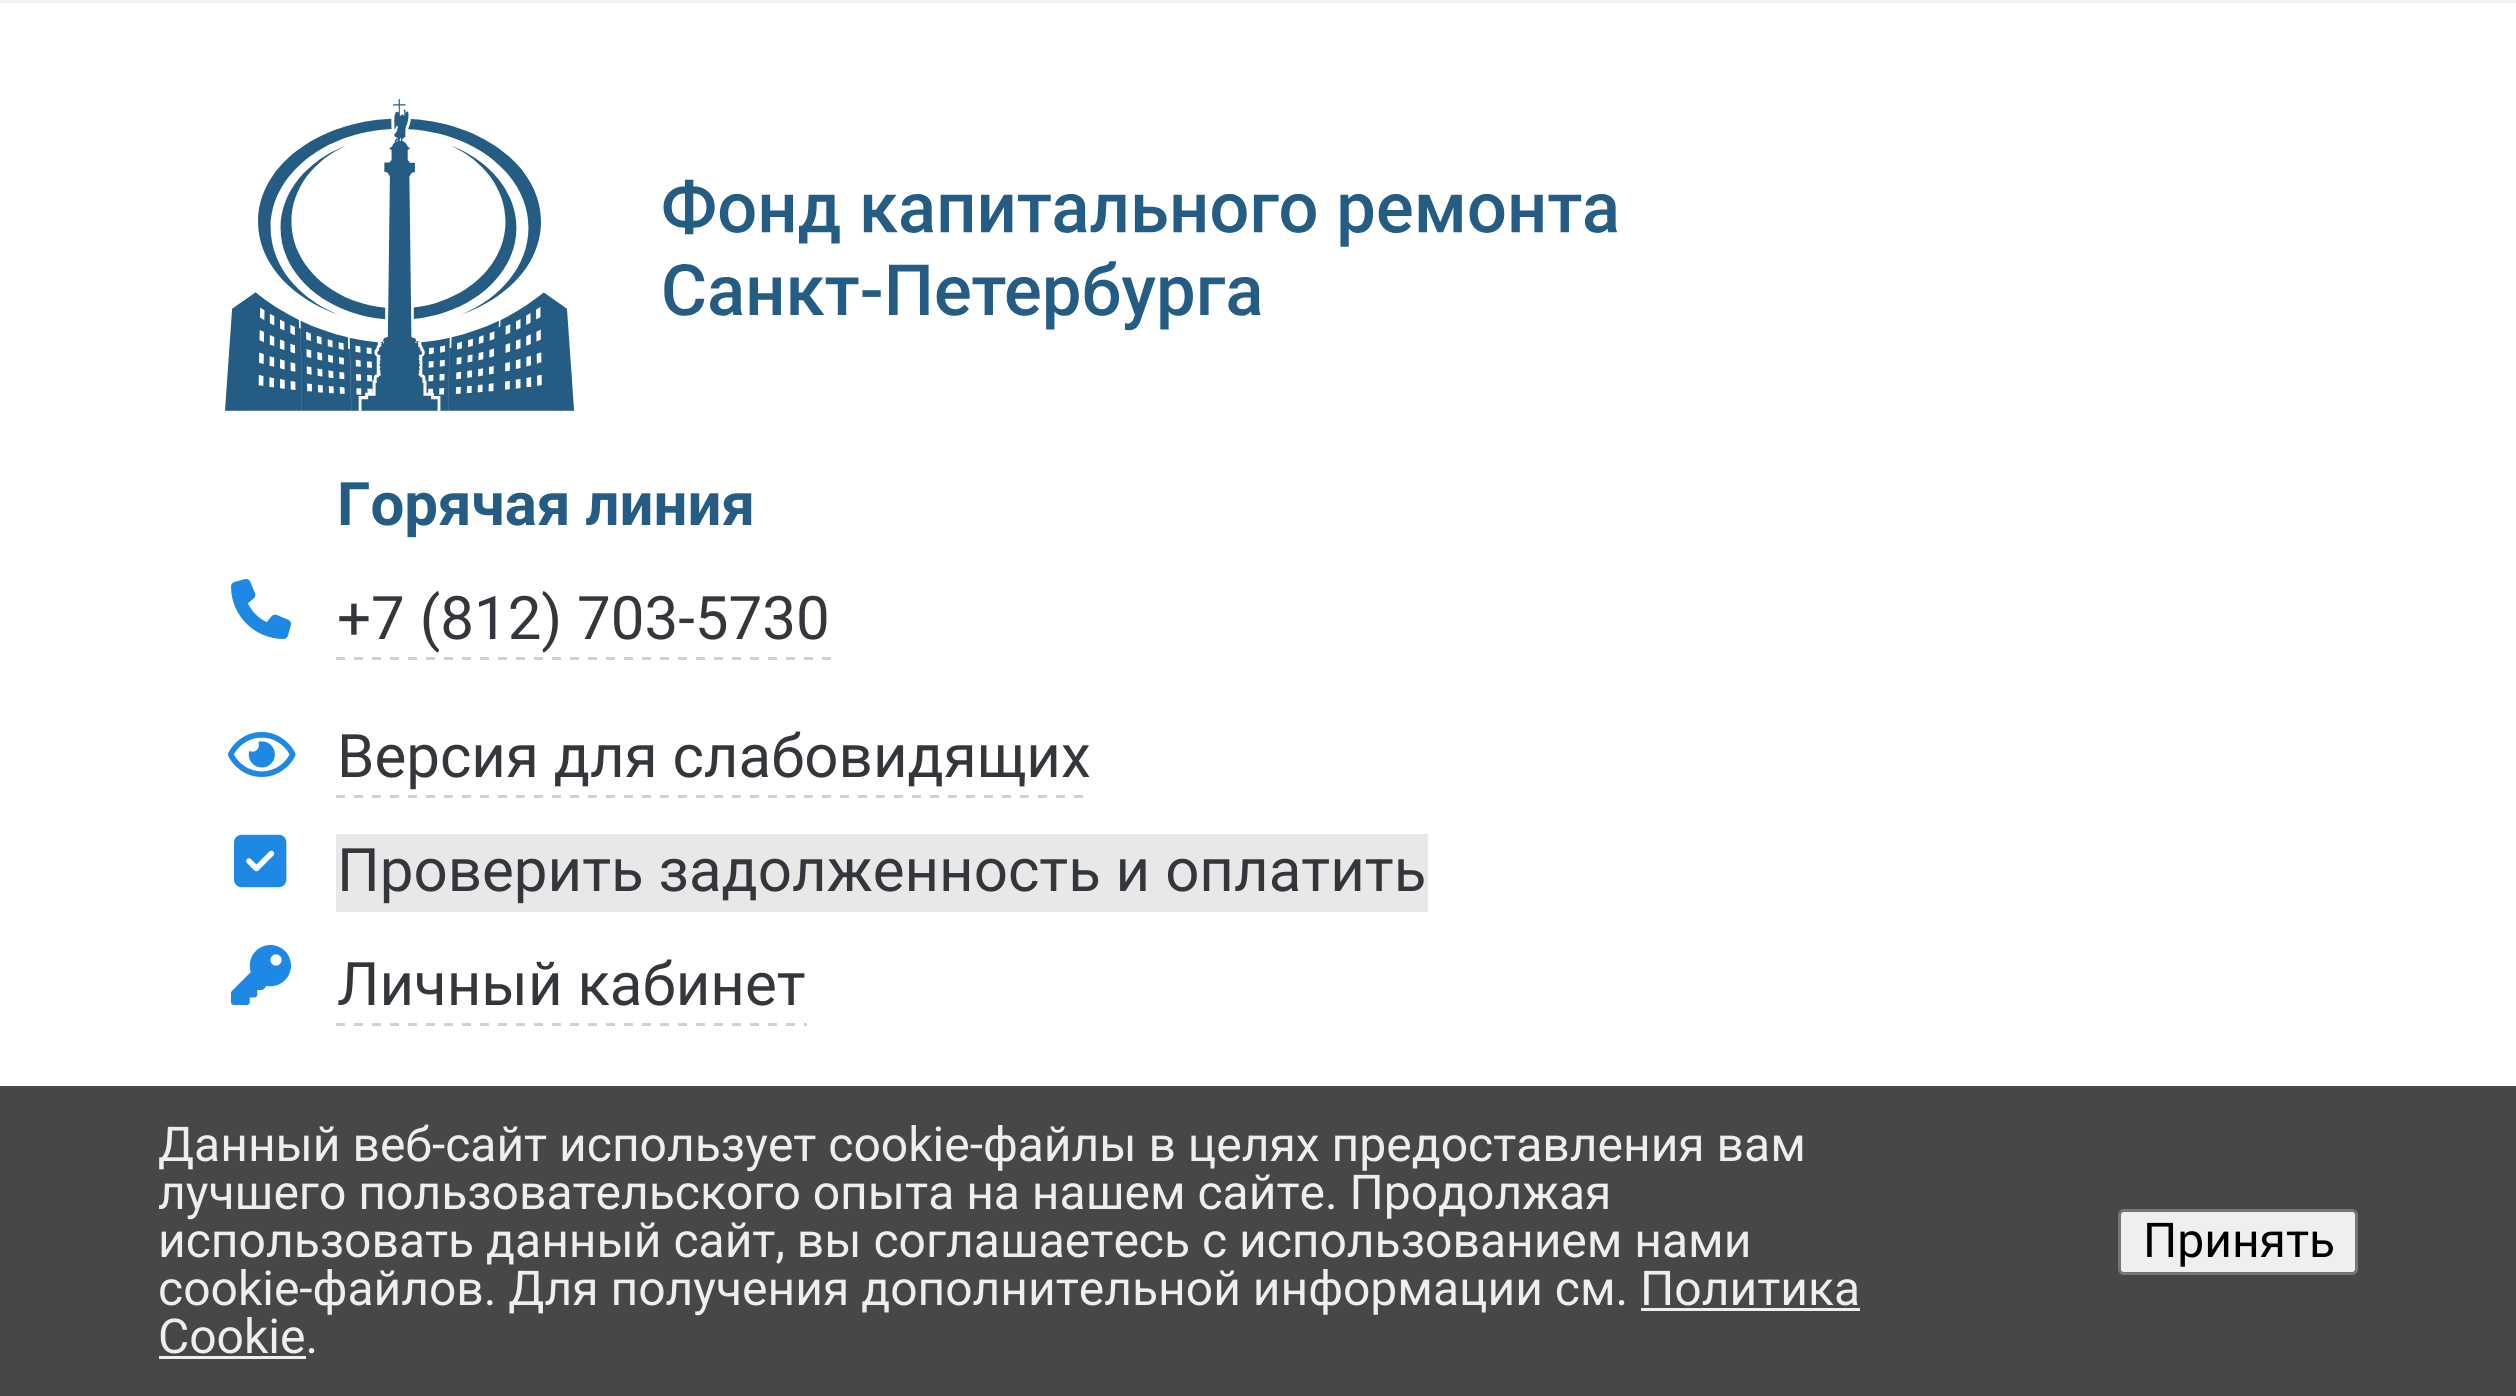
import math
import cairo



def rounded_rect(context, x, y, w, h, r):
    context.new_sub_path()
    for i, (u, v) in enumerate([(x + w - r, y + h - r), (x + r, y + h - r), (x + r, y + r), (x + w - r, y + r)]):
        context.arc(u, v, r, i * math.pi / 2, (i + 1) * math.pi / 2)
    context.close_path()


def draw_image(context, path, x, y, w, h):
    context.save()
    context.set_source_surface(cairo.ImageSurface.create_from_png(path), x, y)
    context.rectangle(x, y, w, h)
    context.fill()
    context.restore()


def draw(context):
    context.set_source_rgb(1, 1, 1)
    context.paint()
    context.set_source_rgb(240 / 255, 240 / 255, 240 / 255)
    context.rectangle(0, 0, 2516, 3)
    context.fill()
    draw_image(context, "images/1.png", 225, 99, 1392, 312)
    draw_image(context, "images/2.png", 231, 579, 60, 60)
    draw_image(context, "images/3.png", 336, 657, 495, 3)
    draw_image(context, "images/4.png", 228, 732, 68, 45)
    draw_image(context, "images/5.png", 336, 795, 747, 3)
    draw_image(context, "images/6.png", 234, 834, 53, 54)
    context.set_source_rgb(232 / 255, 232 / 255, 233 / 255)
    context.rectangle(336, 834, 1092, 78)
    context.fill()
    draw_image(context, "images/7.png", 231, 945, 60, 60)
    draw_image(context, "images/8.png", 336, 1023, 471, 3)
    context.set_source_rgb(71 / 255, 71 / 255, 71 / 255)
    context.rectangle(0, 1086, 2516, 310)
    context.fill()
    context.set_source_rgb(238 / 255, 238 / 255, 238 / 255)
    context.rectangle(1641, 1308, 219, 3)
    context.fill()
    context.rectangle(159, 1356, 147, 3)
    context.fill()
    context.set_source_rgb(239 / 255, 239 / 255, 239 / 255)
    rounded_rect(context, 2119.5, 1210.5, 237, 63, 4.5)
    context.fill_preserve()
    context.set_source_rgb(118 / 255, 118 / 255, 118 / 255)
    context.set_line_width(3)
    context.stroke()
    context.select_font_face("Roboto", cairo.FontSlant.NORMAL, cairo.FontWeight.BOLD)
    context.set_font_size(60)
    context.set_source_rgb(37 / 255, 92 / 255, 132 / 255)
    context.move_to(337, 525)
    context.show_text("Горячая линия")
    context.select_font_face("Roboto")
    context.set_source_rgb(51 / 255, 55 / 255, 59 / 255)
    context.move_to(337, 639)
    context.show_text("+7 (812) 703-5730")
    context.move_to(337, 777)
    context.show_text("Версия для слабовидящих")
    context.move_to(337, 891)
    context.show_text("Проверить задолженность и оплатить")
    context.move_to(337, 1005)
    context.show_text("Личный кабинет")
    context.set_font_size(48)
    context.set_source_rgb(238 / 255, 238 / 255, 238 / 255)
    context.move_to(158, 1161)
    context.show_text("Данный веб-сайт использует cookie-файлы в целях предоставления вам")
    context.move_to(158, 1209)
    context.show_text("лучшего пользовательского опыта на нашем сайте. Продолжая")
    context.move_to(158, 1257)
    context.show_text("использовать данный сайт, вы соглашаетесь с использованием нами")
    context.move_to(158, 1305)
    context.show_text("cookie-файлов. Для получения дополнительной информации см. Политика")
    context.move_to(158, 1353)
    context.show_text("Cookie.")
    context.set_source_rgb(0, 0, 0)
    context.move_to(2143, 1257)
    context.show_text("Принять")


surface = cairo.ImageSurface(cairo.Format.RGB24, 2516, 1396)
context = cairo.Context(surface)
options = cairo.FontOptions()
options.set_hint_metrics(cairo.HintMetrics.OFF)
options.set_hint_style(cairo.HintStyle.NONE)
context.set_font_options(options)
context.set_miter_limit(4)
draw(context)
surface.write_to_png("out.png")
